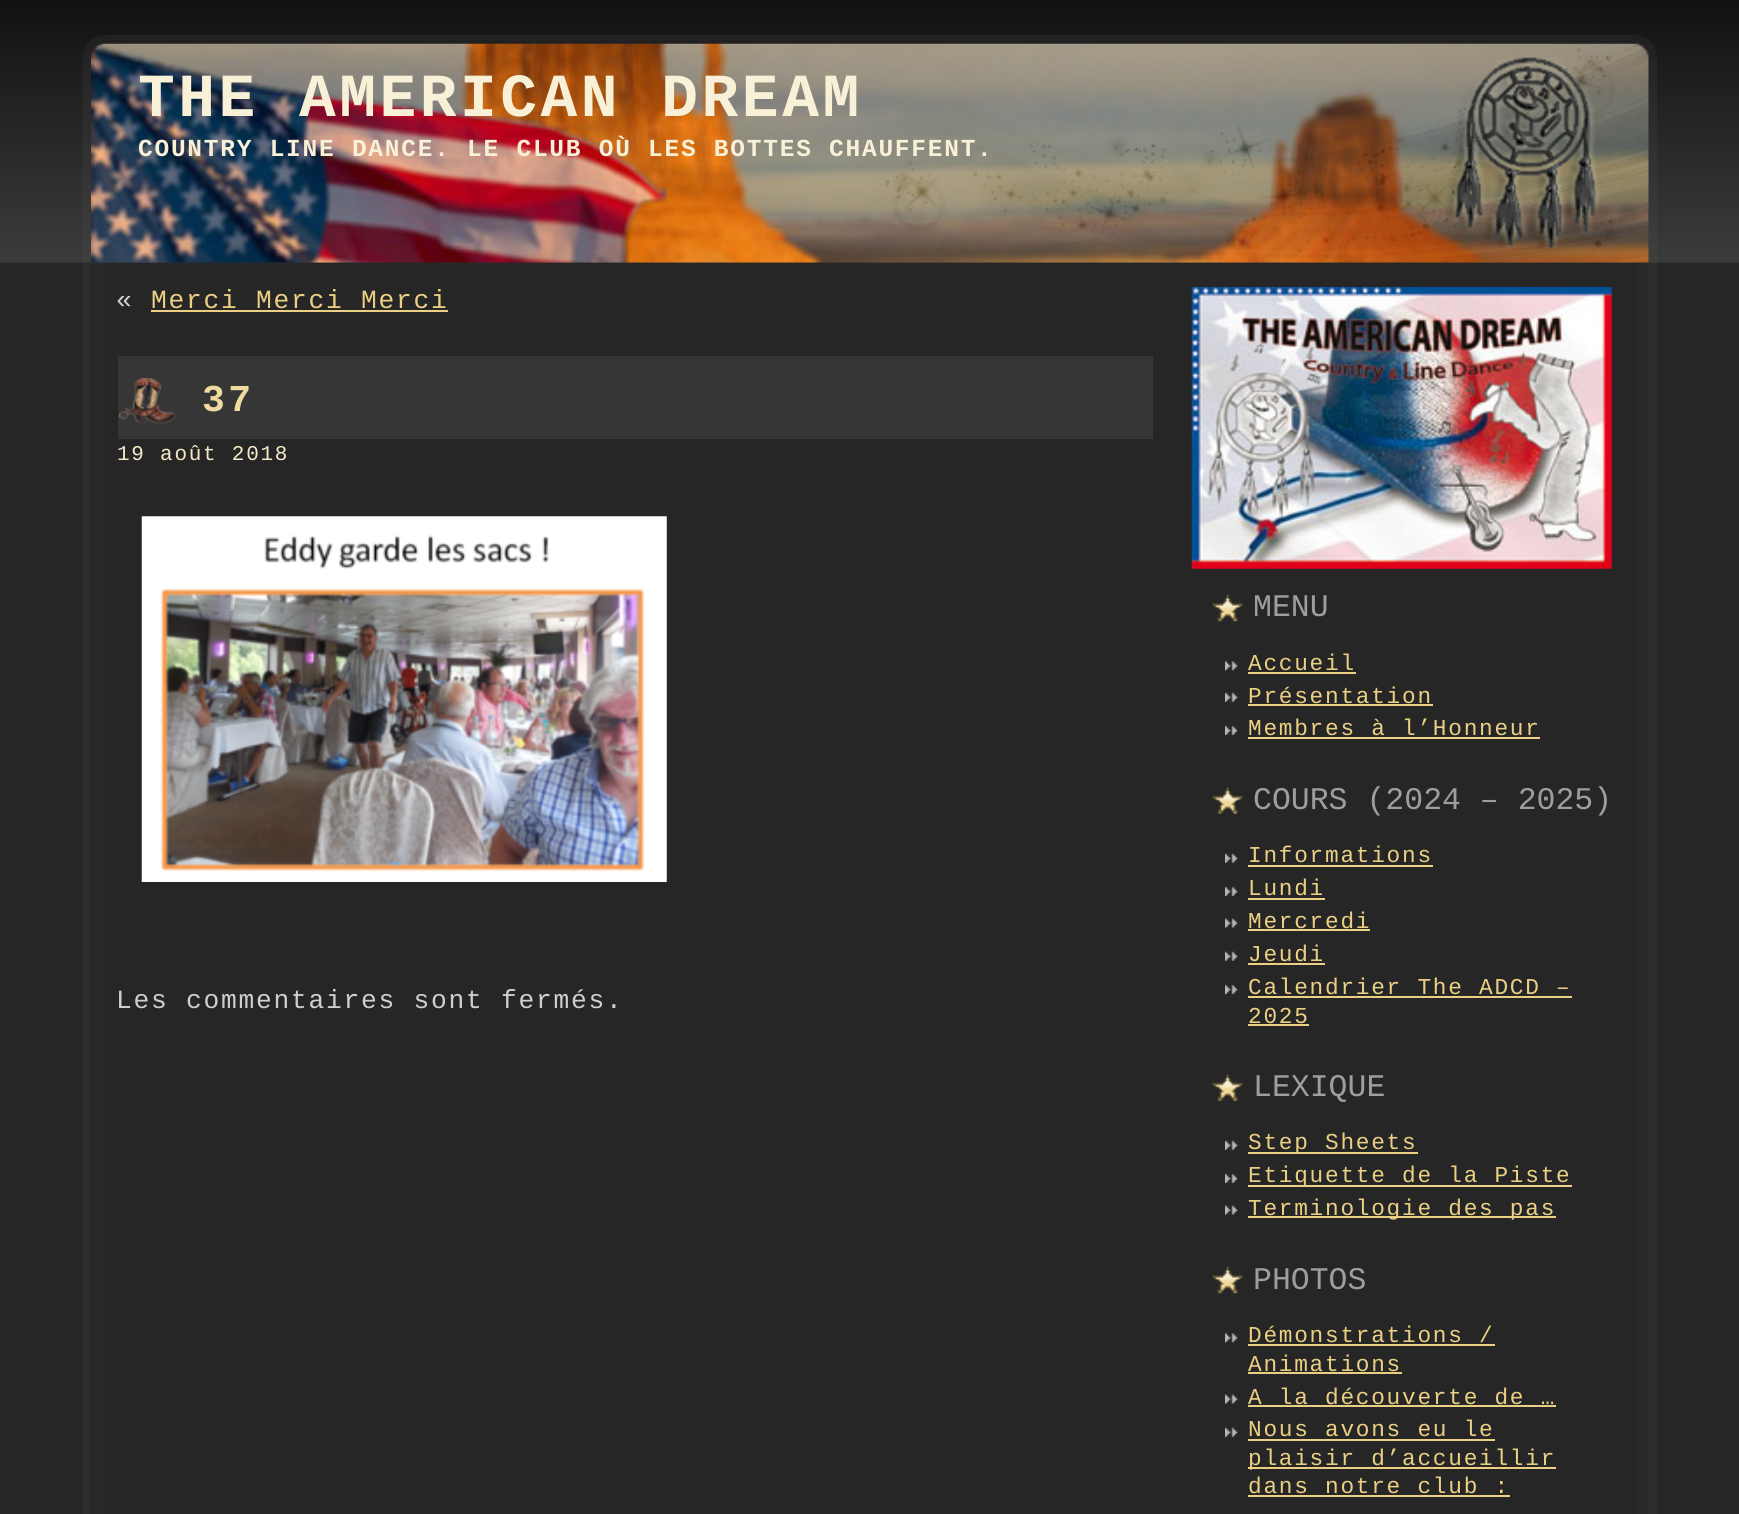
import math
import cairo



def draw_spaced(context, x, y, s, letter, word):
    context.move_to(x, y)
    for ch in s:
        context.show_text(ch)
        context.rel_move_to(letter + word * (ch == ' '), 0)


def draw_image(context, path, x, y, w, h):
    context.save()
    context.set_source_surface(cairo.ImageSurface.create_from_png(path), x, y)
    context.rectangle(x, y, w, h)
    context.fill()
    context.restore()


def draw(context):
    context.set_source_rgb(38 / 255, 38 / 255, 38 / 255)
    context.paint()
    draw_image(context, "images/1.png", 0, 0, 1739, 263)
    draw_image(context, "images/2.png", 82, 35, 23, 23)
    draw_image(context, "images/3.png", 105, 35, 1529, 11)
    draw_image(context, "images/4.png", 1634, 35, 23, 23)
    draw_image(context, "images/5.png", 82, 58, 23, 1456)
    draw_image(context, "images/17.png", 1635, 58, 22, 1456)
    draw_image(context, "images/6.png", 91, 43, 1558, 220)
    draw_image(context, "images/7.png", 105, 57, 1529, 192)
    context.set_source_rgb(235 / 255, 208 / 255, 132 / 255)
    context.rectangle(151, 310, 297, 2)
    context.fill()
    context.set_source_rgb(54 / 255, 54 / 255, 54 / 255)
    context.rectangle(118, 356, 1035, 83)
    context.fill()
    draw_image(context, "images/8.png", 119, 378, 56, 46)
    draw_image(context, "images/9.png", 141, 516, 526, 366)
    draw_image(context, "images/10.png", 1191, 287, 421, 282)
    draw_image(context, "images/11.png", 1212, 594, 31, 28)
    draw_image(context, "images/12.png", 1225, 661, 13, 10)
    context.set_source_rgb(235 / 255, 208 / 255, 132 / 255)
    context.rectangle(1248, 672, 108, 2)
    context.fill()
    draw_image(context, "images/13.png", 1225, 692, 13, 10)
    context.rectangle(1248, 704, 185, 2)
    context.fill()
    draw_image(context, "images/14.png", 1225, 725, 13, 10)
    context.rectangle(1248, 737, 292, 2)
    context.fill()
    draw_image(context, "images/15.png", 1212, 787, 31, 27)
    draw_image(context, "images/13.png", 1225, 853, 13, 10)
    context.rectangle(1248, 865, 185, 2)
    context.fill()
    draw_image(context, "images/14.png", 1225, 886, 13, 10)
    context.rectangle(1248, 898, 77, 2)
    context.fill()
    draw_image(context, "images/16.png", 1225, 918, 13, 10)
    context.rectangle(1248, 929, 122, 2)
    context.fill()
    draw_image(context, "images/13.png", 1225, 951, 13, 10)
    context.rectangle(1248, 963, 77, 2)
    context.fill()
    draw_image(context, "images/14.png", 1225, 984, 13, 10)
    context.rectangle(1248, 996, 324, 2)
    context.fill()
    context.rectangle(1248, 1024, 61, 2)
    context.fill()
    draw_image(context, "images/15.png", 1212, 1074, 31, 27)
    draw_image(context, "images/13.png", 1225, 1140, 13, 10)
    context.rectangle(1248, 1152, 170, 2)
    context.fill()
    draw_image(context, "images/14.png", 1225, 1173, 13, 10)
    context.rectangle(1248, 1185, 324, 2)
    context.fill()
    draw_image(context, "images/16.png", 1225, 1205, 13, 10)
    context.rectangle(1248, 1216, 308, 2)
    context.fill()
    draw_image(context, "images/11.png", 1212, 1266, 31, 28)
    draw_image(context, "images/12.png", 1225, 1333, 13, 10)
    context.rectangle(1248, 1344, 247, 2)
    context.fill()
    context.rectangle(1248, 1372, 154, 2)
    context.fill()
    draw_image(context, "images/16.png", 1225, 1394, 13, 10)
    context.rectangle(1248, 1405, 308, 2)
    context.fill()
    draw_image(context, "images/13.png", 1225, 1427, 13, 10)
    context.rectangle(1248, 1439, 247, 2)
    context.fill()
    context.rectangle(1248, 1467, 308, 2)
    context.fill()
    context.rectangle(1248, 1495, 262, 2)
    context.fill()
    context.select_font_face("Liberation Mono", cairo.FontSlant.NORMAL, cairo.FontWeight.BOLD)
    context.set_font_size(61.25)
    context.set_source_rgb(249 / 255, 240 / 255, 216 / 255)
    draw_spaced(context, 138, 116, "THE AMERICAN DREAM", 3.5, 0)
    context.set_font_size(24.5)
    draw_spaced(context, 138, 156, "COUNTRY LINE DANCE. LE CLUB OÙ LES BOTTES CHAUFFENT.", 1.75, 0)
    context.select_font_face("Liberation Mono")
    context.set_font_size(26.25)
    context.set_source_rgb(207 / 255, 207 / 255, 207 / 255)
    draw_spaced(context, 116, 308, "«", 1.75, 0)
    context.set_source_rgb(235 / 255, 208 / 255, 132 / 255)
    draw_spaced(context, 151, 308, "Merci Merci Merci", 1.75, 0)
    context.select_font_face("Liberation Mono", cairo.FontSlant.NORMAL, cairo.FontWeight.BOLD)
    context.set_font_size(38)
    context.set_source_rgb(239 / 255, 218 / 255, 159 / 255)
    draw_spaced(context, 202, 411, "37", 3.5, 0)
    context.select_font_face("Liberation Mono")
    context.set_font_size(21)
    context.set_source_rgb(246 / 255, 233 / 255, 198 / 255)
    draw_spaced(context, 117, 460, "19 août 2018", 1.75, 0)
    context.set_font_size(26.25)
    context.set_source_rgb(207 / 255, 207 / 255, 207 / 255)
    draw_spaced(context, 116, 1008, "Les commentaires sont fermés.", 1.75, 0)
    context.set_font_size(31.5)
    context.set_source_rgb(158 / 255, 158 / 255, 158 / 255)
    context.move_to(1253, 616)
    context.show_text("MENU")
    context.set_font_size(22.75)
    context.set_source_rgb(235 / 255, 208 / 255, 132 / 255)
    draw_spaced(context, 1248, 670, "Accueil", 1.75, 0)
    draw_spaced(context, 1248, 703, "Présentation", 1.75, 0)
    draw_spaced(context, 1248, 735, "Membres à l’Honneur", 1.75, 0)
    context.set_font_size(31.5)
    context.set_source_rgb(158 / 255, 158 / 255, 158 / 255)
    context.move_to(1253, 809)
    context.show_text("COURS (2024 – 2025)")
    context.set_font_size(22.75)
    context.set_source_rgb(235 / 255, 208 / 255, 132 / 255)
    draw_spaced(context, 1248, 862, "Informations", 1.75, 0)
    draw_spaced(context, 1248, 895, "Lundi", 1.75, 0)
    draw_spaced(context, 1248, 928, "Mercredi", 1.75, 0)
    draw_spaced(context, 1248, 961, "Jeudi", 1.75, 0)
    draw_spaced(context, 1248, 994, "Calendrier The ADCD –", 1.75, 0)
    draw_spaced(context, 1248, 1023, "2025", 1.75, 0)
    context.set_font_size(31.5)
    context.set_source_rgb(158 / 255, 158 / 255, 158 / 255)
    context.move_to(1253, 1096)
    context.show_text("LEXIQUE")
    context.set_font_size(22.75)
    context.set_source_rgb(235 / 255, 208 / 255, 132 / 255)
    draw_spaced(context, 1248, 1149, "Step Sheets", 1.75, 0)
    draw_spaced(context, 1248, 1182, "Etiquette de la Piste", 1.75, 0)
    draw_spaced(context, 1248, 1215, "Terminologie des pas", 1.75, 0)
    context.set_font_size(31.5)
    context.set_source_rgb(158 / 255, 158 / 255, 158 / 255)
    context.move_to(1253, 1289)
    context.show_text("PHOTOS")
    context.set_font_size(22.75)
    context.set_source_rgb(235 / 255, 208 / 255, 132 / 255)
    draw_spaced(context, 1248, 1342, "Démonstrations /", 1.75, 0)
    draw_spaced(context, 1248, 1371, "Animations", 1.75, 0)
    draw_spaced(context, 1248, 1404, "A la découverte de …", 1.75, 0)
    draw_spaced(context, 1248, 1436, "Nous avons eu le", 1.75, 0)
    draw_spaced(context, 1248, 1465, "plaisir d’accueillir", 1.75, 0)
    draw_spaced(context, 1248, 1493, "dans notre club :", 1.75, 0)


surface = cairo.ImageSurface(cairo.Format.RGB24, 1739, 1514)
context = cairo.Context(surface)
options = cairo.FontOptions()
options.set_hint_metrics(cairo.HintMetrics.OFF)
options.set_hint_style(cairo.HintStyle.NONE)
context.set_font_options(options)
context.set_miter_limit(4)
draw(context)
surface.write_to_png("out.png")
